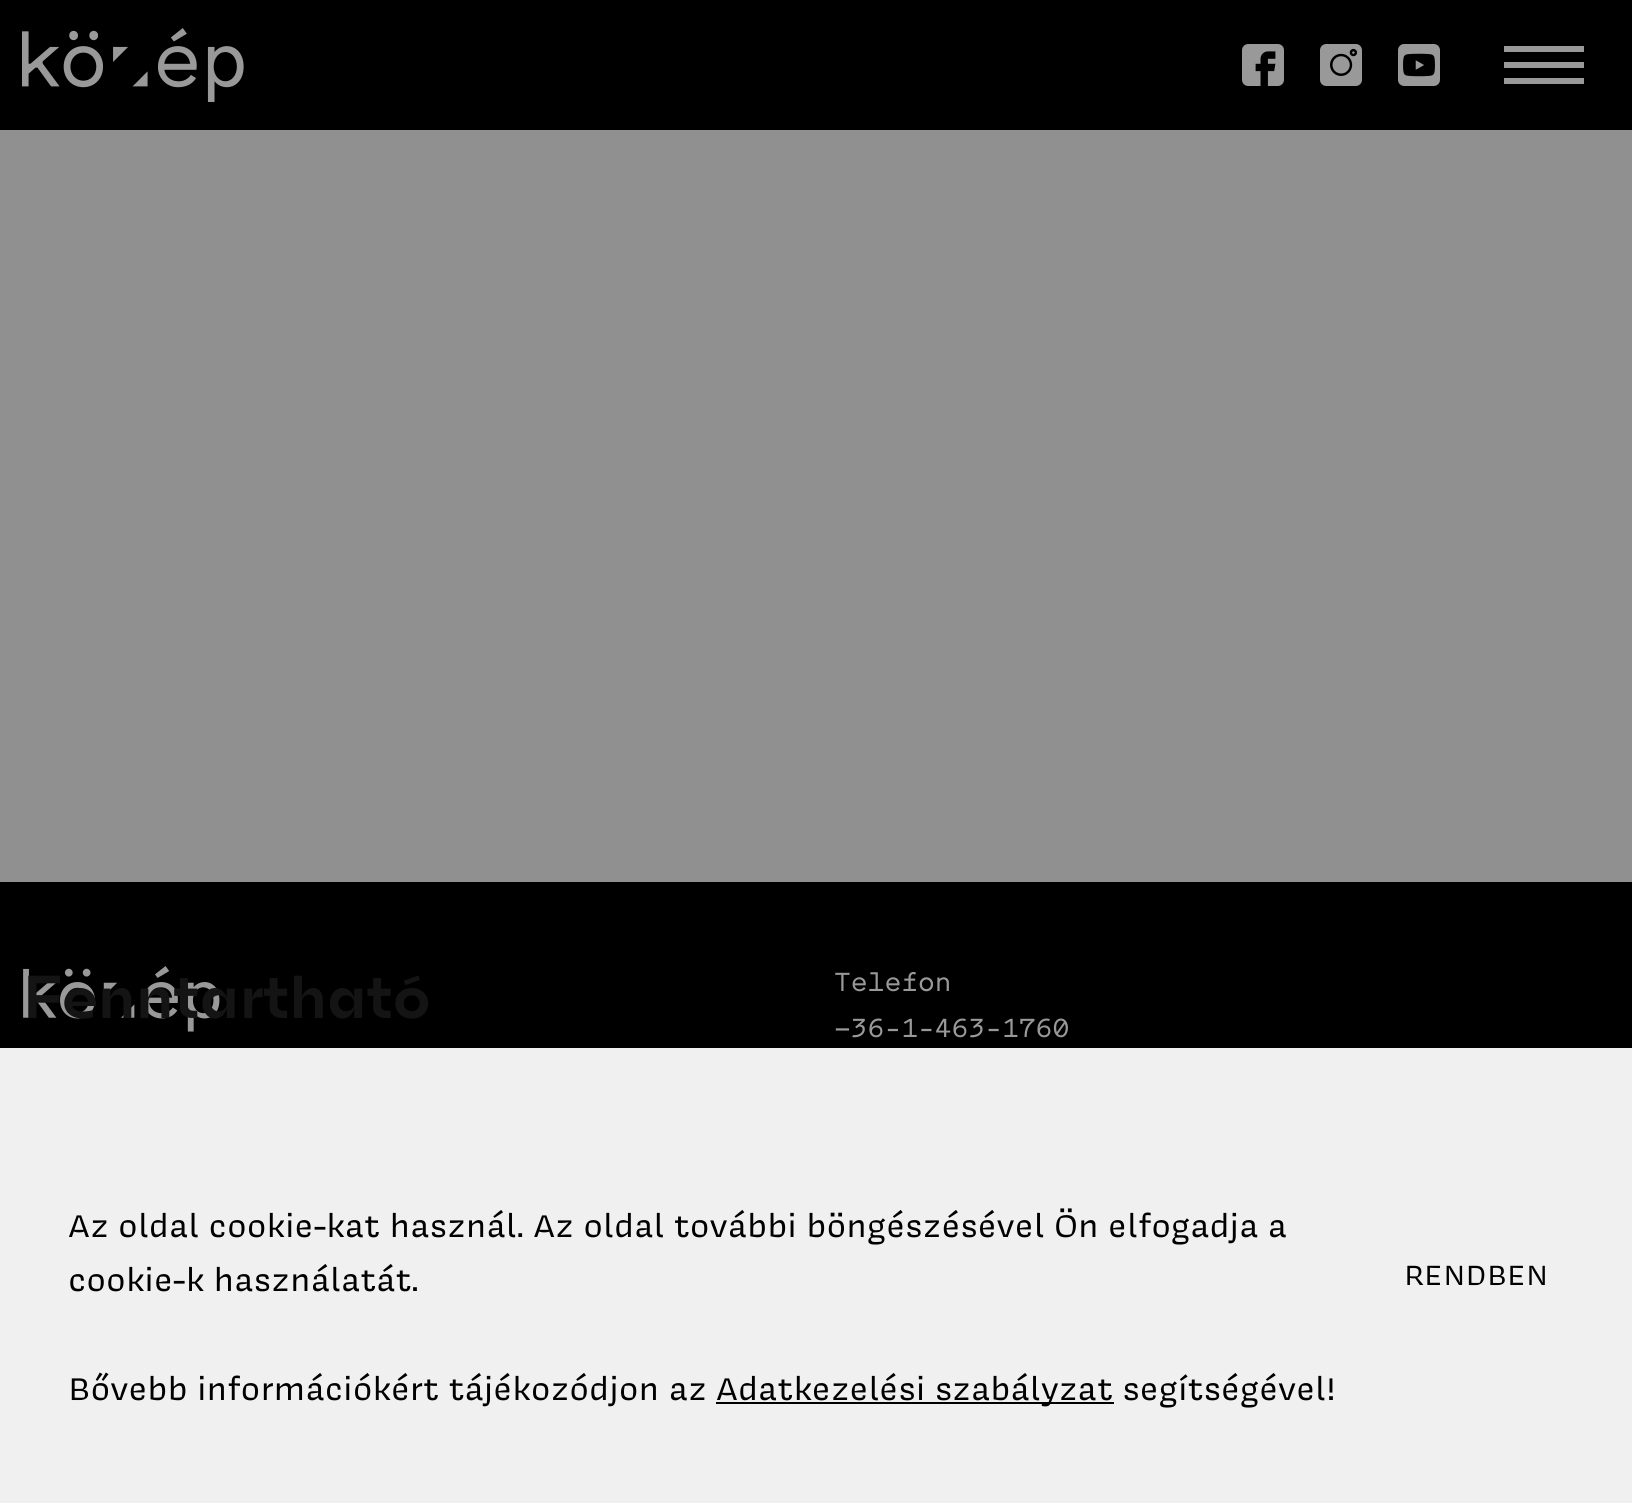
import math
import cairo



def rounded_rect(context, x, y, w, h, r):
    context.new_sub_path()
    for i, (u, v) in enumerate([(x + w - r, y + h - r), (x + r, y + h - r), (x + r, y + r), (x + w - r, y + r)]):
        context.arc(u, v, r, i * math.pi / 2, (i + 1) * math.pi / 2)
    context.close_path()


def draw_shadow(context, x, y, w, h, r, blur, alpha):
    context.push_group_with_content(cairo.Content.ALPHA)
    context.set_operator(cairo.Operator.SOURCE)
    for i in range(15, -16, -2):
        e = blur * i / 6
        if min(w, h) + 2 * e > 0:
            context.set_source_rgba(0, 0, 0, alpha * math.erfc((i - 1) / 8.5) / 2)
            rounded_rect(context, x - e, y - e, w + 2 * e, h + 2 * e, max(0, min(r + e + blur * .6, min(w, h) / 2 + e)))
            context.fill()
    context.mask(context.pop_group())


def draw_image(context, path, x, y, w, h):
    context.save()
    context.set_source_surface(cairo.ImageSurface.create_from_png(path), x, y)
    context.rectangle(x, y, w, h)
    context.fill()
    context.restore()


def draw(context):
    context.set_source_rgb(144 / 255, 144 / 255, 144 / 255)
    context.paint()
    context.set_source_rgb(0, 0, 0)
    context.rectangle(0, 0, 1632, 130)
    context.fill()
    draw_image(context, "images/1.png", 22, 28, 222, 74)
    draw_image(context, "images/2.png", 1242, 44, 42, 42)
    draw_image(context, "images/3.png", 1320, 44, 42, 42)
    draw_image(context, "images/4.png", 1398, 44, 42, 42)
    context.set_source_rgb(153 / 255, 153 / 255, 153 / 255)
    context.rectangle(1504, 46, 80, 6)
    context.fill()
    context.rectangle(1504, 62, 80, 6)
    context.fill()
    context.rectangle(1504, 78, 80, 6)
    context.fill()
    context.set_source_rgb(0, 0, 0)
    context.rectangle(0, 882, 1632, 166)
    context.fill()
    draw_image(context, "images/5.png", 23, 966, 197, 66)
    context.set_source_rgb(0, 0, 0)
    draw_shadow(context, 6, 1054, 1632, 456, 0, 10, 0.3)
    context.set_source_rgb(240 / 255, 240 / 255, 240 / 255)
    context.rectangle(0, 1048, 1632, 455)
    context.fill()
    context.set_source_rgb(0, 0, 0)
    context.rectangle(716, 1402, 398, 2)
    context.fill()
    context.select_font_face("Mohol")
    context.set_font_size(60)
    context.set_source_rgb(20 / 255, 20 / 255, 20 / 255)
    context.move_to(22, 1018)
    context.show_text("Fenntartható")
    context.select_font_face("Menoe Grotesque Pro")
    context.set_font_size(28)
    context.set_source_rgb(153 / 255, 153 / 255, 153 / 255)
    context.move_to(834, 991)
    context.show_text("Telefon")
    context.move_to(834, 1037)
    context.show_text("+36-1-463-1760")
    context.select_font_face("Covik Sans")
    context.set_font_size(36)
    context.set_source_rgb(0, 0, 0)
    context.move_to(68, 1237)
    context.show_text("Az oldal cookie-kat használ. Az oldal további böngészésével Ön elfogadja a")
    context.move_to(68, 1291)
    context.show_text("cookie-k használatát.")
    context.move_to(68, 1400)
    context.show_text("Bővebb információkért tájékozódjon az")
    context.move_to(716, 1400)
    context.show_text("Adatkezelési szabályzat segítségével!")
    context.set_font_size(32)
    context.move_to(1404, 1285)
    context.show_text("RENDBEN")


surface = cairo.ImageSurface(cairo.Format.RGB24, 1632, 1503)
context = cairo.Context(surface)
options = cairo.FontOptions()
options.set_hint_metrics(cairo.HintMetrics.OFF)
options.set_hint_style(cairo.HintStyle.NONE)
context.set_font_options(options)
context.set_miter_limit(4)
draw(context)
surface.write_to_png("out.png")
